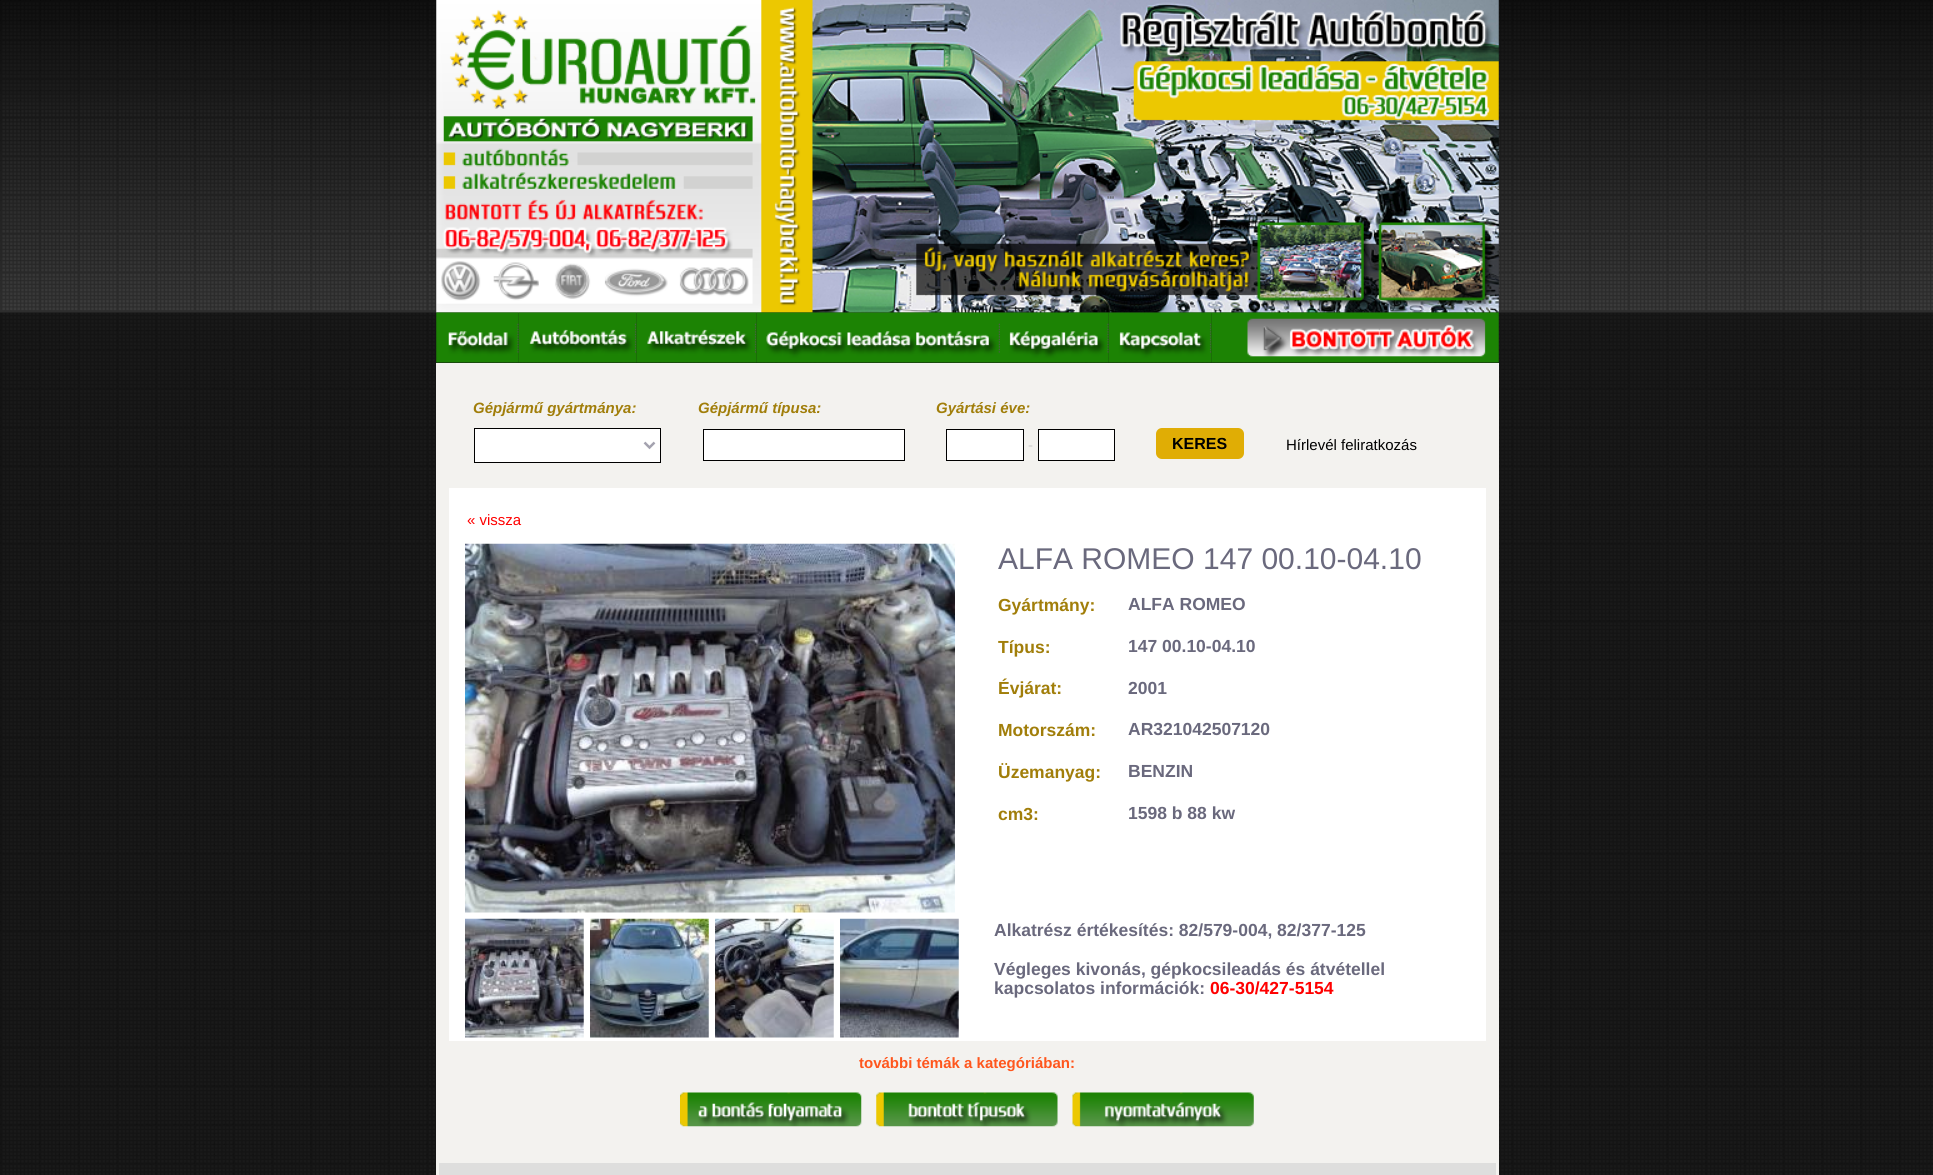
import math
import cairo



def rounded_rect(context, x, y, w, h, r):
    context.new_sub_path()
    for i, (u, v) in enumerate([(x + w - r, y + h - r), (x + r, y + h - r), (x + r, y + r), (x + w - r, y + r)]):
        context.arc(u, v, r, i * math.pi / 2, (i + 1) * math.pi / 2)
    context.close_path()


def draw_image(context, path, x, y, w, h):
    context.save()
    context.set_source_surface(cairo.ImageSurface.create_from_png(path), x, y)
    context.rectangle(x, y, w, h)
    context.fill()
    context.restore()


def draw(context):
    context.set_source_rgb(1, 1, 1)
    context.paint()
    draw_image(context, "images/1.png", 0, 312, 1933, 863)
    draw_image(context, "images/2.png", 0, 0, 1933, 313)
    draw_image(context, "images/3.png", 436, 0, 1063, 313)
    draw_image(context, "images/4.png", 436, 312, 83, 51)
    draw_image(context, "images/5.png", 518, 312, 119, 51)
    draw_image(context, "images/6.png", 636, 312, 121, 51)
    draw_image(context, "images/7.png", 756, 312, 244, 51)
    draw_image(context, "images/8.png", 1000, 312, 109, 51)
    draw_image(context, "images/9.png", 1108, 312, 104, 51)
    draw_image(context, "images/10.png", 1211, 312, 288, 51)
    context.set_source_rgb(243 / 255, 242 / 255, 239 / 255)
    context.rectangle(436, 363, 1063, 812)
    context.fill()
    context.set_source_rgb(1, 1, 1)
    context.rectangle(449, 488, 1037, 553)
    context.fill()
    context.rectangle(474.5, 428.5, 186, 34)
    context.fill_preserve()
    context.set_source_rgb(0, 0, 0)
    context.set_line_width(1)
    context.stroke()
    context.new_path()
    context.move_to(644.5, 442.5)
    context.line_to(649.5, 447.5)
    context.line_to(654.5, 442.5)
    context.set_source_rgb(164 / 255, 162 / 255, 175 / 255)
    context.set_line_width(2.5)
    context.stroke()
    context.set_source_rgb(1, 1, 1)
    context.rectangle(703.5, 429.5, 201, 31)
    context.fill_preserve()
    context.set_source_rgb(0, 0, 0)
    context.set_line_width(1)
    context.stroke()
    context.set_source_rgb(1, 1, 1)
    context.rectangle(946.5, 429.5, 77, 31)
    context.fill_preserve()
    context.set_source_rgb(0, 0, 0)
    context.stroke()
    context.set_source_rgb(1, 1, 1)
    context.rectangle(1038.5, 429.5, 76, 31)
    context.fill_preserve()
    context.set_source_rgb(0, 0, 0)
    context.stroke()
    context.set_source_rgb(224 / 255, 173 / 255, 5 / 255)
    rounded_rect(context, 1156, 428, 88, 31, 6)
    context.fill()
    draw_image(context, "images/11.png", 465, 543, 490, 370)
    draw_image(context, "images/12.png", 465, 918, 119, 120)
    draw_image(context, "images/13.png", 590, 918, 119, 120)
    draw_image(context, "images/14.png", 715, 918, 119, 120)
    draw_image(context, "images/15.png", 840, 918, 119, 120)
    draw_image(context, "images/16.png", 680, 1092, 182, 35)
    draw_image(context, "images/17.png", 876, 1092, 182, 35)
    draw_image(context, "images/18.png", 1072, 1092, 182, 35)
    context.set_source_rgb(222 / 255, 222 / 255, 221 / 255)
    context.rectangle(439, 1163, 1057, 12)
    context.fill()
    context.select_font_face("Liberation Sans", cairo.FontSlant.ITALIC, cairo.FontWeight.BOLD)
    context.set_font_size(15)
    context.set_source_rgb(161 / 255, 126 / 255, 10 / 255)
    context.move_to(473, 413)
    context.show_text("Gépjármű gyártmánya:")
    context.move_to(698, 413)
    context.show_text("Gépjármű típusa:")
    context.move_to(936, 413)
    context.show_text("Gyártási éve:")
    context.select_font_face("Liberation Sans")
    context.set_source_rgb(204 / 255, 204 / 255, 204 / 255)
    context.move_to(1028, 450)
    context.show_text("-")
    context.select_font_face("Liberation Sans", cairo.FontSlant.NORMAL, cairo.FontWeight.BOLD)
    context.set_font_size(16)
    context.set_source_rgb(0, 0, 0)
    context.move_to(1172, 449)
    context.show_text("KERES")
    context.select_font_face("Liberation Sans")
    context.set_font_size(15)
    context.move_to(1286, 450)
    context.show_text("Hírlevél feliratkozás")
    context.set_source_rgb(1, 0, 0)
    context.move_to(467, 525)
    context.show_text("« vissza")
    context.set_font_size(30)
    context.set_source_rgb(106 / 255, 105 / 255, 125 / 255)
    context.move_to(998, 569)
    context.show_text("ALFA ROMEO 147 00.10-04.10")
    context.select_font_face("Liberation Sans", cairo.FontSlant.NORMAL, cairo.FontWeight.BOLD)
    context.set_font_size(17.5)
    context.set_source_rgb(161 / 255, 126 / 255, 10 / 255)
    context.move_to(998, 611)
    context.show_text("Gyártmány:")
    context.set_source_rgb(106 / 255, 105 / 255, 125 / 255)
    context.move_to(1128, 610)
    context.show_text("ALFA ROMEO")
    context.set_source_rgb(161 / 255, 126 / 255, 10 / 255)
    context.move_to(998, 653)
    context.show_text("Típus:")
    context.set_source_rgb(106 / 255, 105 / 255, 125 / 255)
    context.move_to(1128, 652)
    context.show_text("147 00.10-04.10")
    context.set_source_rgb(161 / 255, 126 / 255, 10 / 255)
    context.move_to(998, 694)
    context.show_text("Évjárat:")
    context.set_source_rgb(106 / 255, 105 / 255, 125 / 255)
    context.move_to(1128, 694)
    context.show_text("2001")
    context.set_source_rgb(161 / 255, 126 / 255, 10 / 255)
    context.move_to(998, 736)
    context.show_text("Motorszám:")
    context.set_source_rgb(106 / 255, 105 / 255, 125 / 255)
    context.move_to(1128, 735)
    context.show_text("AR321042507120")
    context.set_source_rgb(161 / 255, 126 / 255, 10 / 255)
    context.move_to(998, 778)
    context.show_text("Üzemanyag:")
    context.set_source_rgb(106 / 255, 105 / 255, 125 / 255)
    context.move_to(1128, 777)
    context.show_text("BENZIN")
    context.set_source_rgb(161 / 255, 126 / 255, 10 / 255)
    context.move_to(998, 820)
    context.show_text("cm3:")
    context.set_source_rgb(106 / 255, 105 / 255, 125 / 255)
    context.move_to(1128, 819)
    context.show_text("1598 b 88 kw")
    context.move_to(994, 936)
    context.show_text("Alkatrész értékesítés: 82/579-004, 82/377-125")
    context.move_to(994, 975)
    context.show_text("Végleges kivonás, gépkocsileadás és átvétellel")
    context.move_to(994, 994)
    context.show_text("kapcsolatos információk:")
    context.set_source_rgb(1, 0, 0)
    context.move_to(1210, 994)
    context.show_text("06-30/427-5154")
    context.set_font_size(15)
    context.set_source_rgb(1, 86 / 255, 29 / 255)
    context.move_to(859, 1068)
    context.show_text("további témák a kategóriában:")


surface = cairo.ImageSurface(cairo.Format.RGB24, 1933, 1175)
context = cairo.Context(surface)
options = cairo.FontOptions()
options.set_hint_metrics(cairo.HintMetrics.OFF)
options.set_hint_style(cairo.HintStyle.NONE)
context.set_font_options(options)
context.set_miter_limit(4)
draw(context)
surface.write_to_png("out.png")
